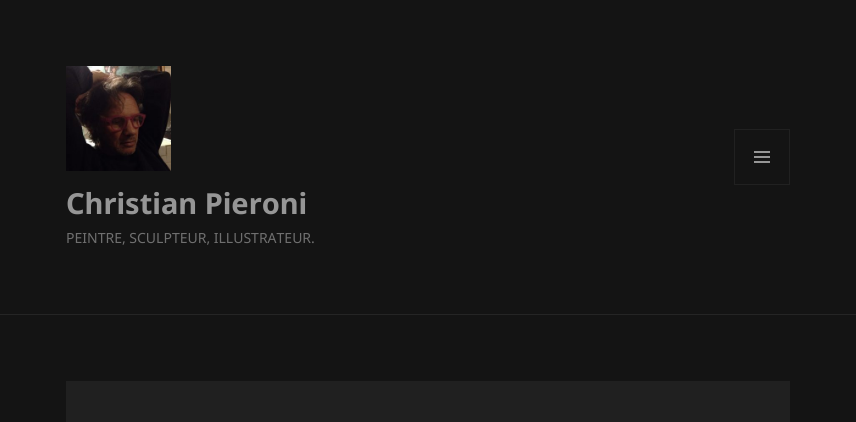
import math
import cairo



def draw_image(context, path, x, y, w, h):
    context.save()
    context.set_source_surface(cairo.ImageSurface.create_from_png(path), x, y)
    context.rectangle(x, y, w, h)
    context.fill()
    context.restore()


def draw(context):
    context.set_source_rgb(20 / 255, 20 / 255, 20 / 255)
    context.paint()
    context.set_source_rgb(37 / 255, 37 / 255, 37 / 255)
    context.rectangle(0, 314, 856, 1)
    context.fill()
    draw_image(context, "images/1.png", 66, 66, 105, 105)
    context.rectangle(734.5, 129.5, 55, 55)
    context.set_source_rgb(33 / 255, 33 / 255, 33 / 255)
    context.set_line_width(1)
    context.stroke()
    draw_image(context, "images/2.png", 754, 151, 16, 12)
    context.set_source_rgb(32 / 255, 32 / 255, 32 / 255)
    context.rectangle(66, 381, 724, 41)
    context.fill()
    context.select_font_face("Noto Sans", cairo.FontSlant.NORMAL, cairo.FontWeight.BOLD)
    context.set_font_size(29)
    context.set_source_rgb(150 / 255, 150 / 255, 150 / 255)
    context.move_to(66, 214)
    context.show_text("Christian Pieroni")
    context.select_font_face("Noto Sans")
    context.set_font_size(14)
    context.set_source_rgb(111 / 255, 111 / 255, 111 / 255)
    context.move_to(66, 243)
    context.show_text("PEINTRE, SCULPTEUR, ILLUSTRATEUR.")


surface = cairo.ImageSurface(cairo.Format.RGB24, 856, 422)
context = cairo.Context(surface)
options = cairo.FontOptions()
options.set_hint_metrics(cairo.HintMetrics.OFF)
options.set_hint_style(cairo.HintStyle.NONE)
context.set_font_options(options)
context.set_miter_limit(4)
draw(context)
surface.write_to_png("out.png")
